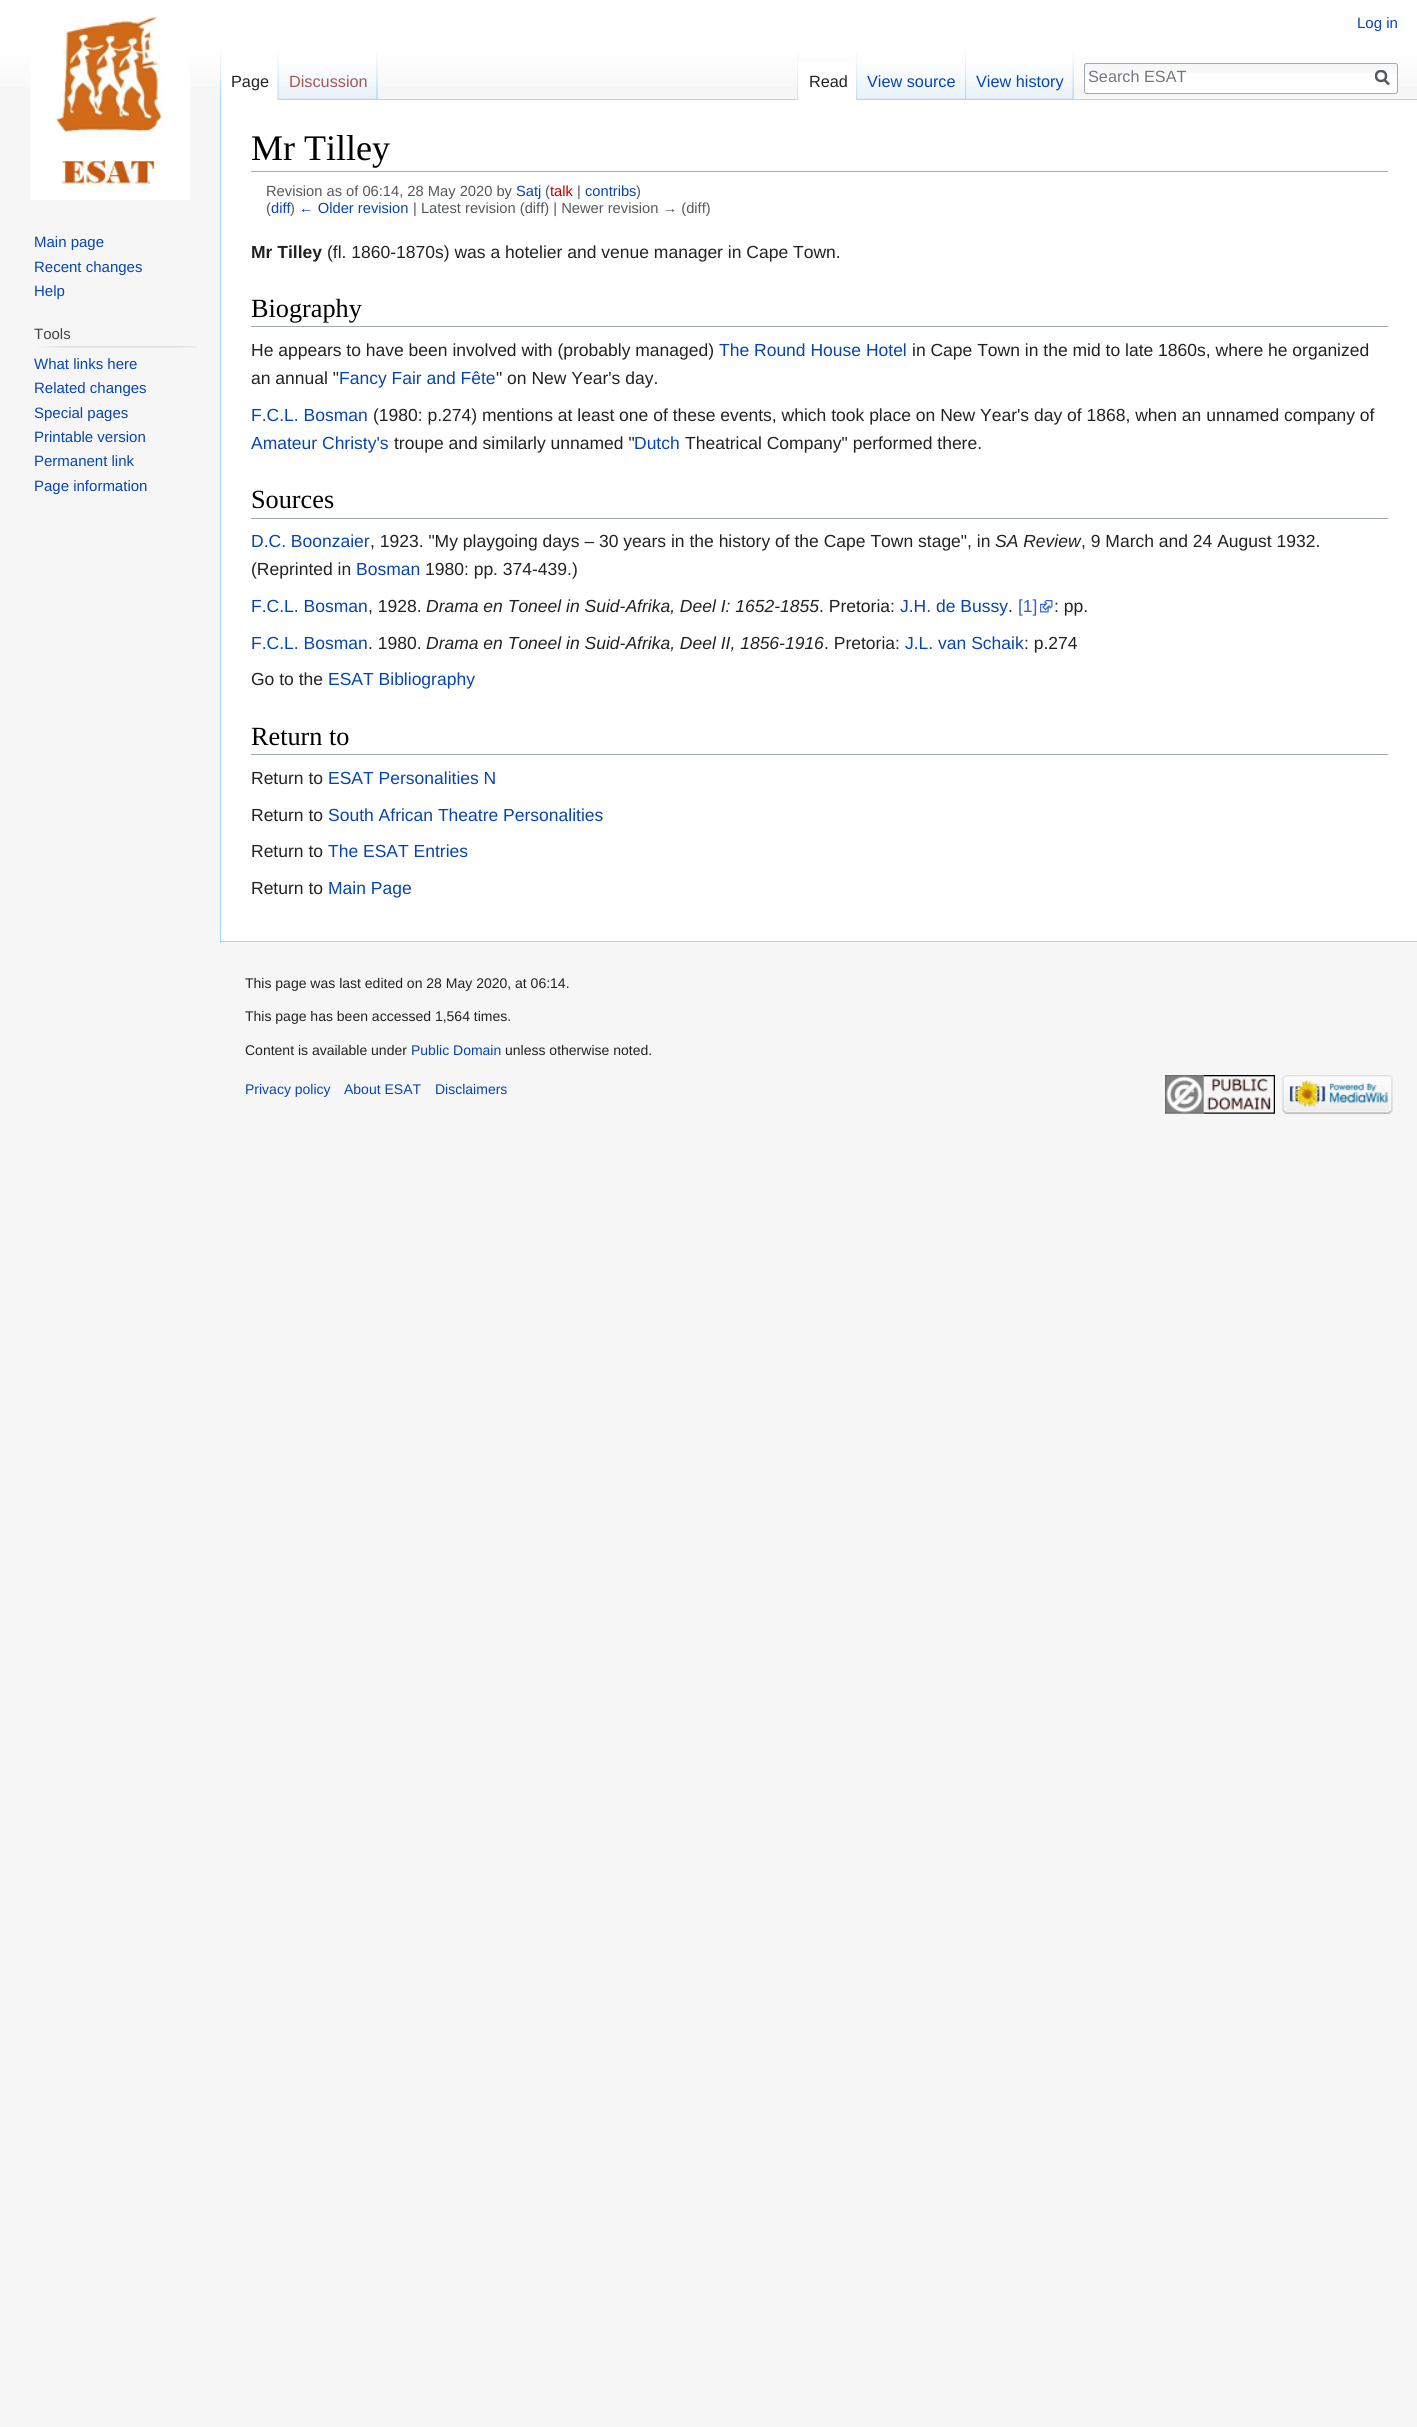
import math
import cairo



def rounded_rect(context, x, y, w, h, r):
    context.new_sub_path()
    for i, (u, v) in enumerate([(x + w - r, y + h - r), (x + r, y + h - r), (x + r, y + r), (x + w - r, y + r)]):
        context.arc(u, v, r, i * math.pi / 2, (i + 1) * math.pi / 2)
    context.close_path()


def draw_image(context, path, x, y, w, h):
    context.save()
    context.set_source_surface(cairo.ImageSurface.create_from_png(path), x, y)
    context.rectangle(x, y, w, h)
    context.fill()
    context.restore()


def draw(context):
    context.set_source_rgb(246 / 255, 246 / 255, 246 / 255)
    context.paint()
    gradient = cairo.LinearGradient(709, 0, 709, 100)
    gradient.add_color_stop_rgba(0.5, 1, 1, 1, 1)
    gradient.add_color_stop_rgba(1, 246 / 255, 246 / 255, 246 / 255, 1)
    context.set_source(gradient)
    context.rectangle(0, 0, 1417, 86)
    context.fill()
    draw_image(context, "images/1.png", 220, 50, 2, 49)
    draw_image(context, "images/2.png", 377, 52, 1, 47)
    context.set_source_rgb(1, 1, 1)
    context.rectangle(221, 58, 58, 42)
    context.fill()
    draw_image(context, "images/3.png", 277, 52, 2, 48)
    context.set_source_rgb(167 / 255, 215 / 255, 249 / 255)
    context.rectangle(377, 99, 1040, 1)
    context.fill()
    draw_image(context, "images/4.png", 278, 52, 100, 48)
    draw_image(context, "images/5.png", 376, 52, 2, 47)
    draw_image(context, "images/6.png", 797, 52, 2, 47)
    draw_image(context, "images/7.png", 1073, 52, 1, 47)
    context.set_source_rgb(1, 1, 1)
    context.rectangle(798, 61, 60, 39)
    context.fill()
    draw_image(context, "images/8.png", 856, 52, 2, 48)
    draw_image(context, "images/9.png", 857, 59, 110, 41)
    draw_image(context, "images/10.png", 965, 50, 2, 49)
    draw_image(context, "images/11.png", 966, 52, 108, 47)
    draw_image(context, "images/12.png", 1072, 52, 2, 47)
    rounded_rect(context, 1084, 63, 314, 31, 2.5)
    context.fill()
    draw_image(context, "images/13.png", 1084, 64, 313, 10)
    rounded_rect(context, 1084.5, 63.5, 313, 30, 2)
    context.set_source_rgb(162 / 255, 169 / 255, 177 / 255)
    context.set_line_width(1)
    context.stroke()
    context.new_path()
    context.move_to(1389, 84.5)
    context.line_to(1384, 79.5)
    context.set_source_rgb(84 / 255, 89 / 255, 93 / 255)
    context.set_line_width(2.5)
    context.stroke()
    context.save()
    context.rectangle(1375, 70, 15, 16)
    context.clip()
    context.arc(1381, 76, 5, 0, 2 * math.pi)
    context.stroke()
    context.restore()
    draw_image(context, "images/14.png", 30, 14, 160, 186)
    draw_image(context, "images/15.png", 37, 346, 161, 2)
    context.set_source_rgb(1, 1, 1)
    context.rectangle(221, 100, 1196, 841)
    context.fill()
    context.set_source_rgb(167 / 255, 215 / 255, 249 / 255)
    context.rectangle(220, 941, 1197, 1)
    context.fill()
    context.rectangle(220, 99, 1, 844)
    context.fill()
    context.set_source_rgb(162 / 255, 169 / 255, 177 / 255)
    context.rectangle(251, 171, 1137, 1)
    context.fill()
    context.rectangle(251, 326, 1137, 1)
    context.fill()
    context.rectangle(251, 518, 1137, 1)
    context.fill()
    draw_image(context, "images/16.png", 1040, 600, 13, 13)
    context.rectangle(251, 754, 1137, 1)
    context.fill()
    draw_image(context, "images/17.png", 1165, 1075, 110, 39)
    draw_image(context, "images/18.png", 1282, 1075, 111, 39)
    context.select_font_face("Liberation Sans")
    context.set_font_size(15)
    context.set_source_rgb(6 / 255, 69 / 255, 173 / 255)
    context.move_to(1357, 28)
    context.show_text("Log in")
    context.set_font_size(16.25)
    context.set_source_rgb(34 / 255, 34 / 255, 34 / 255)
    context.move_to(231, 87)
    context.show_text("Page")
    context.set_source_rgb(165 / 255, 88 / 255, 88 / 255)
    context.move_to(289, 87)
    context.show_text("Discussion")
    context.set_source_rgb(34 / 255, 34 / 255, 34 / 255)
    context.move_to(809, 87)
    context.show_text("Read")
    context.set_source_rgb(6 / 255, 69 / 255, 173 / 255)
    context.move_to(867, 87)
    context.show_text("View source")
    context.move_to(976, 87)
    context.show_text("View history")
    context.set_source_rgb(114 / 255, 119 / 255, 125 / 255)
    context.move_to(1088, 82)
    context.show_text("Search ESAT")
    context.set_font_size(15)
    context.set_source_rgb(6 / 255, 69 / 255, 173 / 255)
    context.move_to(34, 247)
    context.show_text("Main page")
    context.move_to(34, 272)
    context.show_text("Recent changes")
    context.move_to(34, 296)
    context.show_text("Help")
    context.set_source_rgb(68 / 255, 68 / 255, 68 / 255)
    context.move_to(34, 339)
    context.show_text("Tools")
    context.set_source_rgb(6 / 255, 69 / 255, 173 / 255)
    context.move_to(34, 369)
    context.show_text("What links here")
    context.move_to(34, 393)
    context.show_text("Related changes")
    context.move_to(34, 418)
    context.show_text("Special pages")
    context.move_to(34, 442)
    context.show_text("Printable version")
    context.move_to(34, 466)
    context.show_text("Permanent link")
    context.move_to(34, 491)
    context.show_text("Page information")
    context.select_font_face("Liberation Serif")
    context.set_font_size(36)
    context.set_source_rgb(0, 0, 0)
    context.move_to(251, 160)
    context.show_text("Mr Tilley")
    context.select_font_face("Liberation Sans")
    context.set_font_size(14.7)
    context.set_source_rgb(84 / 255, 89 / 255, 93 / 255)
    context.move_to(266, 196)
    context.show_text("Revision as of 06:14, 28 May 2020 by")
    context.set_source_rgb(6 / 255, 69 / 255, 173 / 255)
    context.move_to(516, 196)
    context.show_text("Satj")
    context.set_source_rgb(84 / 255, 89 / 255, 93 / 255)
    context.move_to(545, 196)
    context.show_text("(")
    context.set_source_rgb(186 / 255, 0, 0)
    context.move_to(550, 196)
    context.show_text("talk")
    context.set_source_rgb(84 / 255, 89 / 255, 93 / 255)
    context.move_to(577, 196)
    context.show_text("|")
    context.set_source_rgb(6 / 255, 69 / 255, 173 / 255)
    context.move_to(585, 196)
    context.show_text("contribs")
    context.set_source_rgb(84 / 255, 89 / 255, 93 / 255)
    context.move_to(636, 196)
    context.show_text(")")
    context.move_to(266, 213)
    context.show_text("(")
    context.set_source_rgb(6 / 255, 69 / 255, 173 / 255)
    context.move_to(271, 213)
    context.show_text("diff")
    context.set_source_rgb(84 / 255, 89 / 255, 93 / 255)
    context.move_to(290, 213)
    context.show_text(")")
    context.set_source_rgb(6 / 255, 69 / 255, 173 / 255)
    context.move_to(299, 213)
    context.show_text("← Older revision")
    context.set_source_rgb(84 / 255, 89 / 255, 93 / 255)
    context.move_to(413, 213)
    context.show_text("| Latest revision (diff) | Newer revision → (diff)")
    context.select_font_face("Liberation Sans", cairo.FontSlant.NORMAL, cairo.FontWeight.BOLD)
    context.set_font_size(17.5)
    context.set_source_rgb(34 / 255, 34 / 255, 34 / 255)
    context.move_to(251, 258)
    context.show_text("Mr Tilley")
    context.select_font_face("Liberation Sans")
    context.move_to(327, 258)
    context.show_text("(fl. 1860-1870s) was a hotelier and venue manager in Cape Town.")
    context.select_font_face("Liberation Serif")
    context.set_font_size(26.25)
    context.set_source_rgb(0, 0, 0)
    context.move_to(251, 317)
    context.show_text("Biography")
    context.select_font_face("Liberation Sans")
    context.set_font_size(17.5)
    context.set_source_rgb(34 / 255, 34 / 255, 34 / 255)
    context.move_to(251, 356)
    context.show_text("He appears to have been involved with (probably managed)")
    context.set_source_rgb(6 / 255, 69 / 255, 173 / 255)
    context.move_to(719, 356)
    context.show_text("The Round House Hotel")
    context.set_source_rgb(34 / 255, 34 / 255, 34 / 255)
    context.move_to(912, 356)
    context.show_text("in Cape Town in the mid to late 1860s, where he organized")
    context.move_to(251, 384)
    context.show_text("an annual \"")
    context.set_source_rgb(6 / 255, 69 / 255, 173 / 255)
    context.move_to(339, 384)
    context.show_text("Fancy Fair and Fête")
    context.set_source_rgb(34 / 255, 34 / 255, 34 / 255)
    context.move_to(496, 384)
    context.show_text("\" on New Year's day.")
    context.set_source_rgb(6 / 255, 69 / 255, 173 / 255)
    context.move_to(251, 421)
    context.show_text("F.C.L. Bosman")
    context.set_source_rgb(34 / 255, 34 / 255, 34 / 255)
    context.move_to(373, 421)
    context.show_text("(1980: p.274) mentions at least one of these events, which took place on New Year's day of 1868, when an unnamed company of")
    context.set_source_rgb(6 / 255, 69 / 255, 173 / 255)
    context.move_to(251, 449)
    context.show_text("Amateur Christy's")
    context.set_source_rgb(34 / 255, 34 / 255, 34 / 255)
    context.move_to(394, 449)
    context.show_text("troupe and similarly unnamed \"")
    context.set_source_rgb(6 / 255, 69 / 255, 173 / 255)
    context.move_to(634, 449)
    context.show_text("Dutch")
    context.set_source_rgb(34 / 255, 34 / 255, 34 / 255)
    context.move_to(685, 449)
    context.show_text("Theatrical Company\" performed there.")
    context.select_font_face("Liberation Serif")
    context.set_font_size(26.25)
    context.set_source_rgb(0, 0, 0)
    context.move_to(251, 508)
    context.show_text("Sources")
    context.select_font_face("Liberation Sans")
    context.set_font_size(17.5)
    context.set_source_rgb(6 / 255, 69 / 255, 173 / 255)
    context.move_to(251, 547)
    context.show_text("D.C. Boonzaier")
    context.set_source_rgb(34 / 255, 34 / 255, 34 / 255)
    context.move_to(370, 547)
    context.show_text(", 1923. \"My playgoing days – 30 years in the history of the Cape Town stage\", in")
    context.select_font_face("Liberation Sans", cairo.FontSlant.ITALIC)
    context.move_to(995, 547)
    context.show_text("SA Review")
    context.select_font_face("Liberation Sans")
    context.move_to(1081, 547)
    context.show_text(", 9 March and 24 August 1932.")
    context.move_to(251, 575)
    context.show_text("(Reprinted in")
    context.set_source_rgb(6 / 255, 69 / 255, 173 / 255)
    context.move_to(356, 575)
    context.show_text("Bosman")
    context.set_source_rgb(34 / 255, 34 / 255, 34 / 255)
    context.move_to(425, 575)
    context.show_text("1980: pp. 374-439.)")
    context.set_source_rgb(6 / 255, 69 / 255, 173 / 255)
    context.move_to(251, 612)
    context.show_text("F.C.L. Bosman")
    context.set_source_rgb(34 / 255, 34 / 255, 34 / 255)
    context.move_to(368, 612)
    context.show_text(", 1928.")
    context.select_font_face("Liberation Sans", cairo.FontSlant.ITALIC)
    context.move_to(426, 612)
    context.show_text("Drama en Toneel in Suid-Afrika, Deel I: 1652-1855")
    context.select_font_face("Liberation Sans")
    context.move_to(819, 612)
    context.show_text(". Pretoria:")
    context.set_source_rgb(6 / 255, 69 / 255, 173 / 255)
    context.move_to(900, 612)
    context.show_text("J.H. de Bussy")
    context.set_source_rgb(34 / 255, 34 / 255, 34 / 255)
    context.move_to(1008, 612)
    context.show_text(".")
    context.set_source_rgb(51 / 255, 102 / 255, 187 / 255)
    context.move_to(1018, 612)
    context.show_text("[1]")
    context.set_source_rgb(34 / 255, 34 / 255, 34 / 255)
    context.move_to(1054, 612)
    context.show_text(": pp.")
    context.set_source_rgb(6 / 255, 69 / 255, 173 / 255)
    context.move_to(251, 649)
    context.show_text("F.C.L. Bosman")
    context.set_source_rgb(34 / 255, 34 / 255, 34 / 255)
    context.move_to(368, 649)
    context.show_text(". 1980.")
    context.select_font_face("Liberation Sans", cairo.FontSlant.ITALIC)
    context.move_to(426, 649)
    context.show_text("Drama en Toneel in Suid-Afrika, Deel II, 1856-1916")
    context.select_font_face("Liberation Sans")
    context.move_to(824, 649)
    context.show_text(". Pretoria:")
    context.set_source_rgb(6 / 255, 69 / 255, 173 / 255)
    context.move_to(905, 649)
    context.show_text("J.L. van Schaik")
    context.set_source_rgb(34 / 255, 34 / 255, 34 / 255)
    context.move_to(1024, 649)
    context.show_text(": p.274")
    context.move_to(251, 685)
    context.show_text("Go to the")
    context.set_source_rgb(6 / 255, 69 / 255, 173 / 255)
    context.move_to(328, 685)
    context.show_text("ESAT Bibliography")
    context.select_font_face("Liberation Serif")
    context.set_font_size(26.25)
    context.set_source_rgb(0, 0, 0)
    context.move_to(251, 745)
    context.show_text("Return to")
    context.select_font_face("Liberation Sans")
    context.set_font_size(17.5)
    context.set_source_rgb(34 / 255, 34 / 255, 34 / 255)
    context.move_to(251, 784)
    context.show_text("Return to")
    context.set_source_rgb(6 / 255, 69 / 255, 173 / 255)
    context.move_to(328, 784)
    context.show_text("ESAT Personalities N")
    context.set_source_rgb(34 / 255, 34 / 255, 34 / 255)
    context.move_to(251, 821)
    context.show_text("Return to")
    context.set_source_rgb(6 / 255, 69 / 255, 173 / 255)
    context.move_to(328, 821)
    context.show_text("South African Theatre Personalities")
    context.set_source_rgb(34 / 255, 34 / 255, 34 / 255)
    context.move_to(251, 857)
    context.show_text("Return to")
    context.set_source_rgb(6 / 255, 69 / 255, 173 / 255)
    context.move_to(328, 857)
    context.show_text("The ESAT Entries")
    context.set_source_rgb(34 / 255, 34 / 255, 34 / 255)
    context.move_to(251, 894)
    context.show_text("Return to")
    context.set_source_rgb(6 / 255, 69 / 255, 173 / 255)
    context.move_to(328, 894)
    context.show_text("Main Page")
    context.set_font_size(14)
    context.set_source_rgb(34 / 255, 34 / 255, 34 / 255)
    context.move_to(245, 988)
    context.show_text("This page was last edited on 28 May 2020, at 06:14.")
    context.move_to(245, 1021)
    context.show_text("This page has been accessed 1,564 times.")
    context.move_to(245, 1055)
    context.show_text("Content is available under")
    context.set_source_rgb(6 / 255, 69 / 255, 173 / 255)
    context.move_to(411, 1055)
    context.show_text("Public Domain")
    context.set_source_rgb(34 / 255, 34 / 255, 34 / 255)
    context.move_to(505, 1055)
    context.show_text("unless otherwise noted.")
    context.set_source_rgb(6 / 255, 69 / 255, 173 / 255)
    context.move_to(245, 1094)
    context.show_text("Privacy policy")
    context.move_to(344, 1094)
    context.show_text("About ESAT")
    context.move_to(435, 1094)
    context.show_text("Disclaimers")


surface = cairo.ImageSurface(cairo.Format.RGB24, 1417, 2427)
context = cairo.Context(surface)
options = cairo.FontOptions()
options.set_hint_metrics(cairo.HintMetrics.OFF)
options.set_hint_style(cairo.HintStyle.NONE)
context.set_font_options(options)
context.set_miter_limit(4)
draw(context)
surface.write_to_png("out.png")
